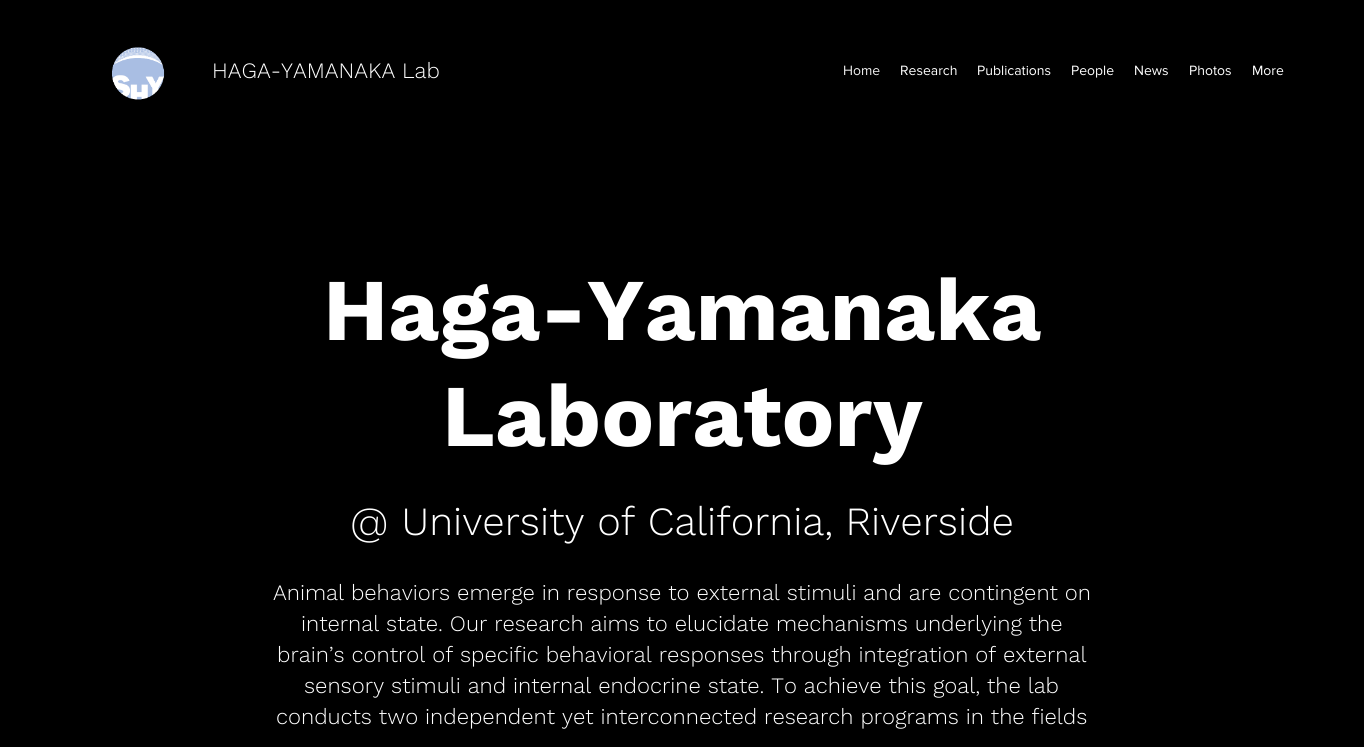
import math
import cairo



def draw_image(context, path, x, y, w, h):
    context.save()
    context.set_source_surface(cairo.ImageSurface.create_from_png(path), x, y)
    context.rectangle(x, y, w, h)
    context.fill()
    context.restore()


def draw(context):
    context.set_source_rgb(0, 0, 0)
    context.paint()
    draw_image(context, "images/1.png", 112, 47, 53, 53)
    context.select_font_face("Work Sans Light")
    context.set_font_size(22)
    context.set_source_rgb(1, 1, 1)
    context.move_to(212, 78)
    context.show_text("HAGA-YAMANAKA Lab")
    context.select_font_face("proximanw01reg")
    context.set_font_size(14)
    context.set_source_rgb(241 / 255, 241 / 255, 241 / 255)
    context.move_to(843, 75)
    context.show_text("Home")
    context.set_source_rgb(1, 1, 1)
    context.move_to(900, 75)
    context.show_text("Research")
    context.move_to(977, 75)
    context.show_text("Publications")
    context.move_to(1071, 75)
    context.show_text("People")
    context.move_to(1134, 75)
    context.show_text("News")
    context.move_to(1189, 75)
    context.show_text("Photos")
    context.move_to(1252, 75)
    context.show_text("More")
    context.select_font_face("Work Sans", cairo.FontSlant.NORMAL, cairo.FontWeight.BOLD)
    context.set_font_size(88)
    context.move_to(323, 340)
    context.show_text("Haga-Yamanaka")
    context.move_to(442, 446)
    context.show_text("Laboratory")
    context.select_font_face("Work Sans Light")
    context.set_font_size(40)
    context.move_to(350, 535)
    context.show_text("@ University of California, Riverside")
    context.set_font_size(22)
    context.move_to(273, 600)
    context.show_text("Animal behaviors emerge in response to external stimuli and are contingent on")
    context.move_to(301, 631)
    context.show_text("internal state. Our research aims to elucidate mechanisms underlying the")
    context.move_to(277, 662)
    context.show_text("brain’s control of specific behavioral responses through integration of external")
    context.move_to(304, 693)
    context.show_text("sensory stimuli and internal endocrine state. To achieve this goal, the lab")
    context.move_to(276, 724)
    context.show_text("conducts two independent yet interconnected research programs in the fields")


surface = cairo.ImageSurface(cairo.Format.RGB24, 1364, 747)
context = cairo.Context(surface)
options = cairo.FontOptions()
options.set_hint_metrics(cairo.HintMetrics.OFF)
options.set_hint_style(cairo.HintStyle.NONE)
context.set_font_options(options)
context.set_miter_limit(4)
draw(context)
surface.write_to_png("out.png")
